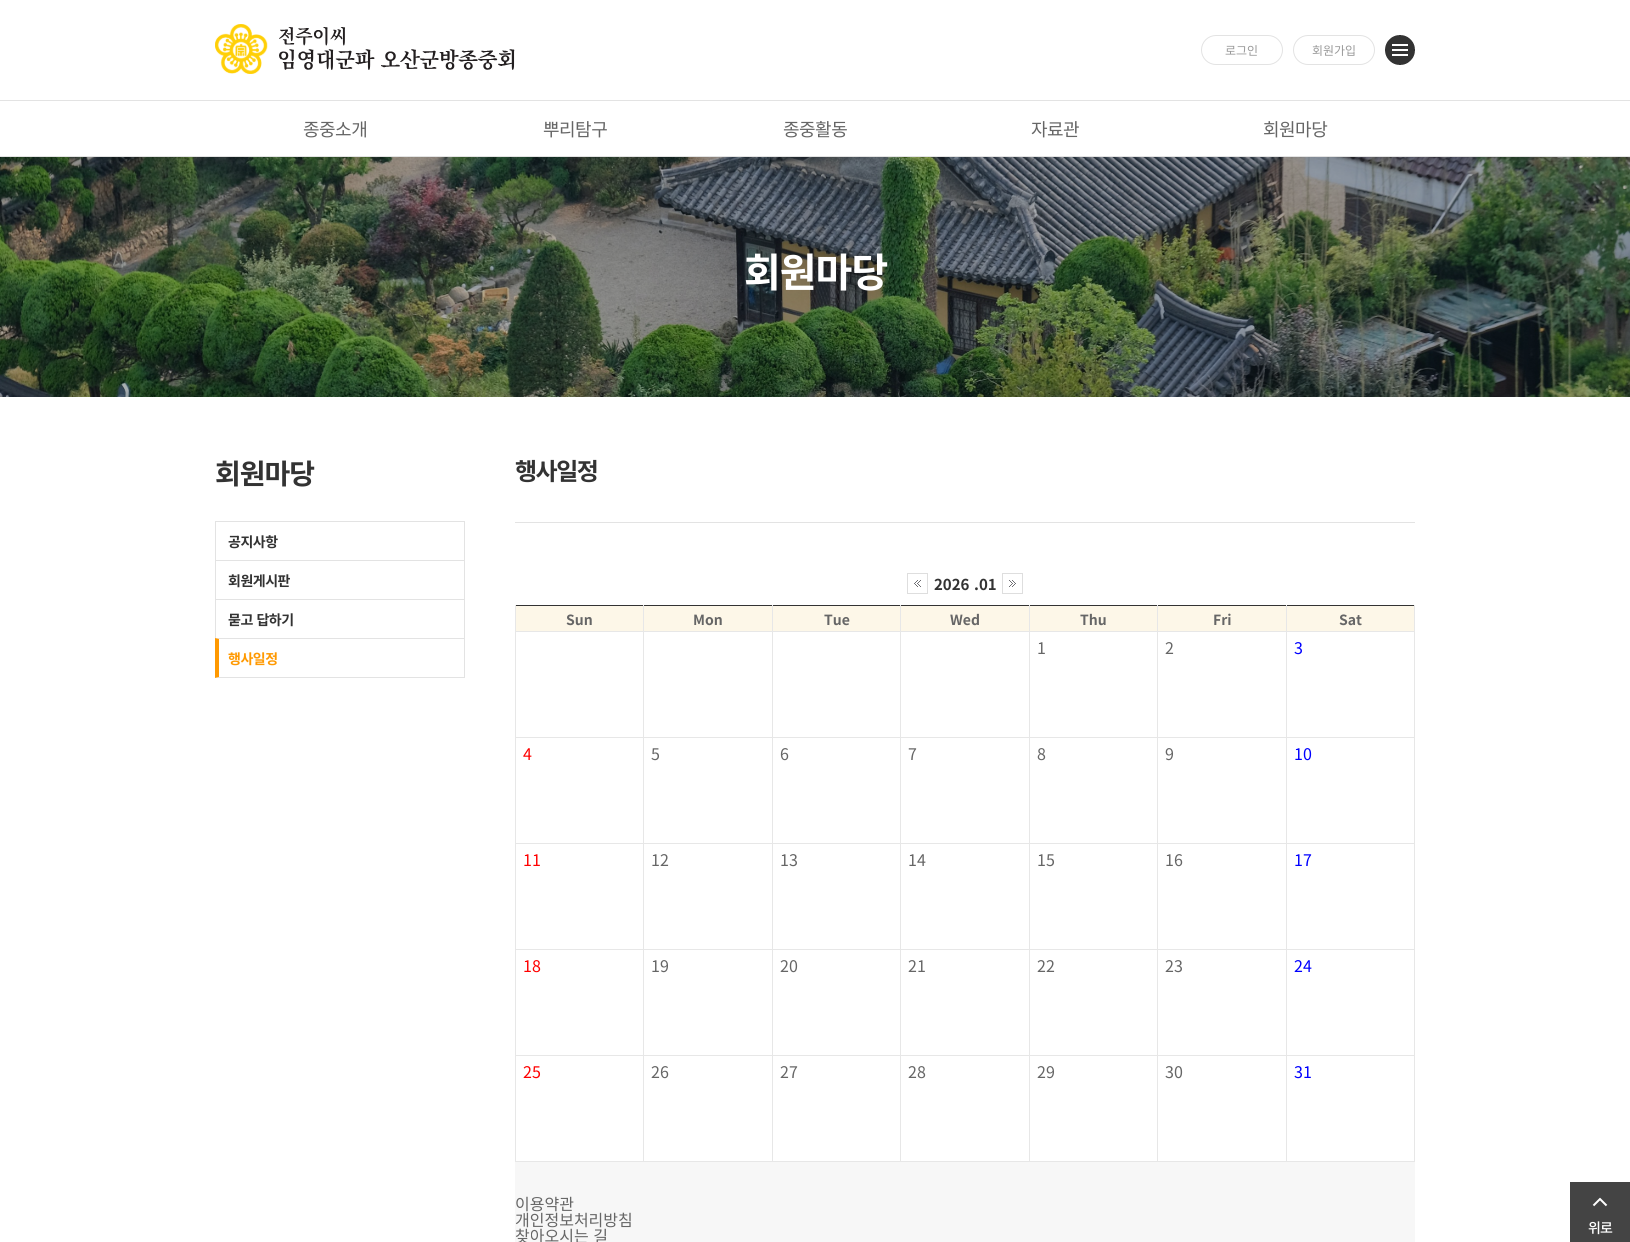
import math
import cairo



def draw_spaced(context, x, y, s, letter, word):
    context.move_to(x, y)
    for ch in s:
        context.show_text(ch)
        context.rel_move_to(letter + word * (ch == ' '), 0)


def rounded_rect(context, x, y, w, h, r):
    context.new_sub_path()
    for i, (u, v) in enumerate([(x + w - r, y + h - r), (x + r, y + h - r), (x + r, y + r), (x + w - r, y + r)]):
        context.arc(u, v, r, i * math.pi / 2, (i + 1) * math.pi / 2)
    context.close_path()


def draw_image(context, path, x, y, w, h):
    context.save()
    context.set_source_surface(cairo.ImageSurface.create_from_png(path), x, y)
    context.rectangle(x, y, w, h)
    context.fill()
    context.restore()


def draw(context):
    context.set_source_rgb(1, 1, 1)
    context.paint()
    context.set_source_rgb(227 / 255, 227 / 255, 227 / 255)
    context.rectangle(0, 156, 1630, 1)
    context.fill()
    draw_image(context, "images/1.png", 215, 24, 300, 50)
    rounded_rect(context, 1201.5, 35.5, 81, 29, 14.5)
    context.set_line_width(1)
    context.stroke()
    rounded_rect(context, 1293.5, 35.5, 81, 29, 14.5)
    context.stroke()
    draw_image(context, "images/2.png", 1385, 35, 30, 30)
    context.rectangle(0, 100, 1630, 1)
    context.fill()
    draw_image(context, "images/3.png", 0, 157, 1630, 240)
    context.rectangle(215, 521, 250, 1)
    context.fill()
    context.rectangle(464, 521, 1, 39)
    context.fill()
    context.rectangle(215, 521, 1, 39)
    context.fill()
    context.rectangle(215, 560, 250, 1)
    context.fill()
    context.rectangle(464, 560, 1, 39)
    context.fill()
    context.rectangle(215, 560, 1, 39)
    context.fill()
    context.rectangle(215, 599, 250, 1)
    context.fill()
    context.rectangle(464, 599, 1, 39)
    context.fill()
    context.rectangle(215, 599, 1, 39)
    context.fill()
    context.new_path()
    context.move_to(215, 638)
    context.line_to(465, 638)
    context.line_to(464, 639)
    context.line_to(219, 639)
    context.close_path()
    context.fill()
    context.rectangle(464, 638, 1, 40)
    context.fill()
    context.new_path()
    context.move_to(465, 678)
    context.line_to(215, 678)
    context.line_to(219, 677)
    context.line_to(464, 677)
    context.close_path()
    context.fill()
    context.set_source_rgb(1, 153 / 255, 1 / 255)
    context.new_path()
    context.move_to(215, 678)
    context.line_to(215, 638)
    context.line_to(219, 639)
    context.line_to(219, 677)
    context.close_path()
    context.fill()
    context.set_source_rgb(227 / 255, 227 / 255, 227 / 255)
    context.rectangle(515, 522, 900, 1)
    context.fill()
    draw_image(context, "images/4.png", 907, 573, 21, 21)
    draw_image(context, "images/5.png", 1002, 573, 21, 21)
    context.set_source_rgb(51 / 255, 51 / 255, 51 / 255)
    context.rectangle(515, 605, 900, 1)
    context.fill()
    context.set_source_rgb(231 / 255, 231 / 255, 231 / 255)
    context.rectangle(515, 605, 1, 557)
    context.fill()
    context.set_source_rgb(253 / 255, 247 / 255, 232 / 255)
    context.rectangle(516, 606, 127, 25)
    context.fill()
    context.set_source_rgb(231 / 255, 231 / 255, 231 / 255)
    context.rectangle(1414, 605, 1, 557)
    context.fill()
    context.rectangle(1286, 1161, 129, 1)
    context.fill()
    context.rectangle(1286, 1055, 1, 107)
    context.fill()
    context.rectangle(1286, 1055, 129, 1)
    context.fill()
    context.rectangle(1286, 949, 1, 107)
    context.fill()
    context.rectangle(1286, 949, 129, 1)
    context.fill()
    context.rectangle(1286, 843, 1, 107)
    context.fill()
    context.rectangle(1286, 843, 129, 1)
    context.fill()
    context.rectangle(1286, 737, 1, 107)
    context.fill()
    context.rectangle(1286, 737, 129, 1)
    context.fill()
    context.rectangle(1286, 631, 1, 107)
    context.fill()
    context.rectangle(1286, 631, 129, 1)
    context.fill()
    context.rectangle(1286, 605, 1, 27)
    context.fill()
    context.rectangle(1157, 1161, 130, 1)
    context.fill()
    context.rectangle(1157, 1055, 1, 107)
    context.fill()
    context.rectangle(1157, 1055, 130, 1)
    context.fill()
    context.rectangle(1157, 949, 1, 107)
    context.fill()
    context.rectangle(1157, 949, 130, 1)
    context.fill()
    context.rectangle(1157, 843, 1, 107)
    context.fill()
    context.rectangle(1157, 843, 130, 1)
    context.fill()
    context.rectangle(1157, 737, 1, 107)
    context.fill()
    context.rectangle(1157, 737, 130, 1)
    context.fill()
    context.rectangle(1157, 631, 1, 107)
    context.fill()
    context.rectangle(1157, 631, 130, 1)
    context.fill()
    context.rectangle(1157, 605, 1, 27)
    context.fill()
    context.rectangle(1029, 1161, 129, 1)
    context.fill()
    context.rectangle(1029, 1055, 1, 107)
    context.fill()
    context.rectangle(1029, 1055, 129, 1)
    context.fill()
    context.rectangle(1029, 949, 1, 107)
    context.fill()
    context.rectangle(1029, 949, 129, 1)
    context.fill()
    context.rectangle(1029, 843, 1, 107)
    context.fill()
    context.rectangle(1029, 843, 129, 1)
    context.fill()
    context.rectangle(1029, 737, 1, 107)
    context.fill()
    context.rectangle(1029, 737, 129, 1)
    context.fill()
    context.rectangle(1029, 631, 1, 107)
    context.fill()
    context.rectangle(1029, 631, 129, 1)
    context.fill()
    context.rectangle(1029, 605, 1, 27)
    context.fill()
    context.rectangle(900, 1161, 130, 1)
    context.fill()
    context.rectangle(900, 1055, 1, 107)
    context.fill()
    context.rectangle(900, 1055, 130, 1)
    context.fill()
    context.rectangle(900, 949, 1, 107)
    context.fill()
    context.rectangle(900, 949, 130, 1)
    context.fill()
    context.rectangle(900, 843, 1, 107)
    context.fill()
    context.rectangle(900, 843, 130, 1)
    context.fill()
    context.rectangle(900, 737, 1, 107)
    context.fill()
    context.rectangle(900, 737, 130, 1)
    context.fill()
    context.rectangle(900, 631, 1, 107)
    context.fill()
    context.rectangle(900, 631, 130, 1)
    context.fill()
    context.rectangle(900, 605, 1, 27)
    context.fill()
    context.rectangle(772, 1161, 129, 1)
    context.fill()
    context.rectangle(772, 1055, 1, 107)
    context.fill()
    context.rectangle(772, 1055, 129, 1)
    context.fill()
    context.rectangle(772, 949, 1, 107)
    context.fill()
    context.rectangle(772, 949, 129, 1)
    context.fill()
    context.rectangle(772, 843, 1, 107)
    context.fill()
    context.rectangle(772, 843, 129, 1)
    context.fill()
    context.rectangle(772, 737, 1, 107)
    context.fill()
    context.rectangle(772, 737, 129, 1)
    context.fill()
    context.rectangle(772, 631, 1, 107)
    context.fill()
    context.rectangle(772, 631, 129, 1)
    context.fill()
    context.rectangle(772, 605, 1, 27)
    context.fill()
    context.rectangle(643, 1161, 130, 1)
    context.fill()
    context.rectangle(643, 1055, 1, 107)
    context.fill()
    context.rectangle(643, 1055, 130, 1)
    context.fill()
    context.rectangle(643, 949, 1, 107)
    context.fill()
    context.rectangle(643, 949, 130, 1)
    context.fill()
    context.rectangle(643, 843, 1, 107)
    context.fill()
    context.rectangle(643, 843, 130, 1)
    context.fill()
    context.rectangle(643, 737, 1, 107)
    context.fill()
    context.rectangle(643, 737, 130, 1)
    context.fill()
    context.rectangle(643, 631, 1, 107)
    context.fill()
    context.rectangle(643, 631, 130, 1)
    context.fill()
    context.rectangle(643, 605, 1, 27)
    context.fill()
    context.rectangle(515, 631, 129, 1)
    context.fill()
    context.set_source_rgb(253 / 255, 247 / 255, 232 / 255)
    context.rectangle(644, 606, 128, 25)
    context.fill()
    context.rectangle(773, 606, 127, 25)
    context.fill()
    context.rectangle(901, 606, 128, 25)
    context.fill()
    context.rectangle(1030, 606, 127, 25)
    context.fill()
    context.rectangle(1158, 606, 128, 25)
    context.fill()
    context.rectangle(1287, 606, 127, 25)
    context.fill()
    context.set_source_rgb(231 / 255, 231 / 255, 231 / 255)
    context.rectangle(515, 737, 129, 1)
    context.fill()
    context.rectangle(515, 843, 129, 1)
    context.fill()
    context.rectangle(515, 949, 129, 1)
    context.fill()
    context.rectangle(515, 1055, 129, 1)
    context.fill()
    context.rectangle(515, 1161, 129, 1)
    context.fill()
    context.set_source_rgb(247 / 255, 247 / 255, 247 / 255)
    context.rectangle(515, 1162, 900, 80)
    context.fill()
    context.set_source_rgb(68 / 255, 68 / 255, 68 / 255)
    context.rectangle(1570, 1182, 60, 60)
    context.fill()
    draw_image(context, "images/6.png", 1592, 1197, 16, 10)
    context.select_font_face("Noto Sans KR")
    context.set_font_size(12)
    context.set_source_rgb(153 / 255, 153 / 255, 153 / 255)
    context.move_to(1225, 55)
    context.show_text("로그인")
    context.move_to(1312, 55)
    context.show_text("회원가입")
    context.set_font_size(18)
    context.set_source_rgb(102 / 255, 102 / 255, 102 / 255)
    draw_spaced(context, 303, 136, "종중소개", -0.5, 0)
    draw_spaced(context, 543, 136, "뿌리탐구", -0.5, 0)
    draw_spaced(context, 783, 136, "종중활동", -0.5, 0)
    draw_spaced(context, 1031, 136, "자료관", -0.5, 0)
    draw_spaced(context, 1263, 136, "회원마당", -0.5, 0)
    context.select_font_face("Noto Sans KR", cairo.FontSlant.NORMAL, cairo.FontWeight.BOLD)
    context.set_font_size(40)
    context.set_source_rgb(1, 1, 1)
    draw_spaced(context, 744, 287, "회원마당", -1, 0)
    context.set_font_size(28)
    context.set_source_rgb(51 / 255, 51 / 255, 51 / 255)
    draw_spaced(context, 215, 484, "회원마당", -1, 0)
    context.set_font_size(14)
    draw_spaced(context, 228, 547, "공지사항", -0.5, 0)
    draw_spaced(context, 228, 586, "회원게시판", -0.5, 0)
    draw_spaced(context, 228, 625, "묻고 답하기", -0.5, 1)
    context.set_source_rgb(1, 153 / 255, 1 / 255)
    draw_spaced(context, 228, 664, "행사일정", -0.5, 0)
    context.set_font_size(24)
    context.set_source_rgb(51 / 255, 51 / 255, 51 / 255)
    draw_spaced(context, 515, 480, "행사일정", -1.5, 0)
    context.set_font_size(15)
    context.move_to(934, 590)
    context.show_text("2026")
    context.move_to(974, 590)
    context.show_text(".01")
    context.set_font_size(14)
    context.set_source_rgb(102 / 255, 102 / 255, 102 / 255)
    context.move_to(566, 625)
    context.show_text("Sun")
    context.move_to(693, 625)
    context.show_text("Mon")
    context.move_to(824, 625)
    context.show_text("Tue")
    context.move_to(950, 625)
    context.show_text("Wed")
    context.move_to(1080, 625)
    context.show_text("Thu")
    context.move_to(1213, 625)
    context.show_text("Fri")
    context.move_to(1339, 625)
    context.show_text("Sat")
    context.select_font_face("Noto Sans KR")
    context.set_font_size(16)
    context.move_to(1037, 654)
    context.show_text("1")
    context.move_to(1165, 654)
    context.show_text("2")
    context.set_source_rgb(0, 0, 1)
    context.move_to(1294, 654)
    context.show_text("3")
    context.set_source_rgb(1, 0, 0)
    context.move_to(523, 760)
    context.show_text("4")
    context.set_source_rgb(102 / 255, 102 / 255, 102 / 255)
    context.move_to(651, 760)
    context.show_text("5")
    context.move_to(780, 760)
    context.show_text("6")
    context.move_to(908, 760)
    context.show_text("7")
    context.move_to(1037, 760)
    context.show_text("8")
    context.move_to(1165, 760)
    context.show_text("9")
    context.set_source_rgb(0, 0, 1)
    context.move_to(1294, 760)
    context.show_text("10")
    context.set_source_rgb(1, 0, 0)
    context.move_to(523, 866)
    context.show_text("11")
    context.set_source_rgb(102 / 255, 102 / 255, 102 / 255)
    context.move_to(651, 866)
    context.show_text("12")
    context.move_to(780, 866)
    context.show_text("13")
    context.move_to(908, 866)
    context.show_text("14")
    context.move_to(1037, 866)
    context.show_text("15")
    context.move_to(1165, 866)
    context.show_text("16")
    context.set_source_rgb(0, 0, 1)
    context.move_to(1294, 866)
    context.show_text("17")
    context.set_source_rgb(1, 0, 0)
    context.move_to(523, 972)
    context.show_text("18")
    context.set_source_rgb(102 / 255, 102 / 255, 102 / 255)
    context.move_to(651, 972)
    context.show_text("19")
    context.move_to(780, 972)
    context.show_text("20")
    context.move_to(908, 972)
    context.show_text("21")
    context.move_to(1037, 972)
    context.show_text("22")
    context.move_to(1165, 972)
    context.show_text("23")
    context.set_source_rgb(0, 0, 1)
    context.move_to(1294, 972)
    context.show_text("24")
    context.set_source_rgb(1, 0, 0)
    context.move_to(523, 1078)
    context.show_text("25")
    context.set_source_rgb(102 / 255, 102 / 255, 102 / 255)
    context.move_to(651, 1078)
    context.show_text("26")
    context.move_to(780, 1078)
    context.show_text("27")
    context.move_to(908, 1078)
    context.show_text("28")
    context.move_to(1037, 1078)
    context.show_text("29")
    context.move_to(1165, 1078)
    context.show_text("30")
    context.set_source_rgb(0, 0, 1)
    context.move_to(1294, 1078)
    context.show_text("31")
    context.set_source_rgb(102 / 255, 102 / 255, 102 / 255)
    context.move_to(515, 1210)
    context.show_text("이용약관")
    context.move_to(515, 1226)
    context.show_text("개인정보처리방침")
    draw_spaced(context, 515, 1242, "찾아오시는 길", 0, 1)
    context.select_font_face("Noto Sans KR Medium")
    context.set_font_size(14)
    context.set_source_rgb(1, 1, 1)
    draw_spaced(context, 1588, 1233, "위로", -1, 0)


surface = cairo.ImageSurface(cairo.Format.RGB24, 1630, 1242)
context = cairo.Context(surface)
options = cairo.FontOptions()
options.set_hint_metrics(cairo.HintMetrics.OFF)
options.set_hint_style(cairo.HintStyle.NONE)
context.set_font_options(options)
context.set_miter_limit(4)
draw(context)
surface.write_to_png("out.png")
